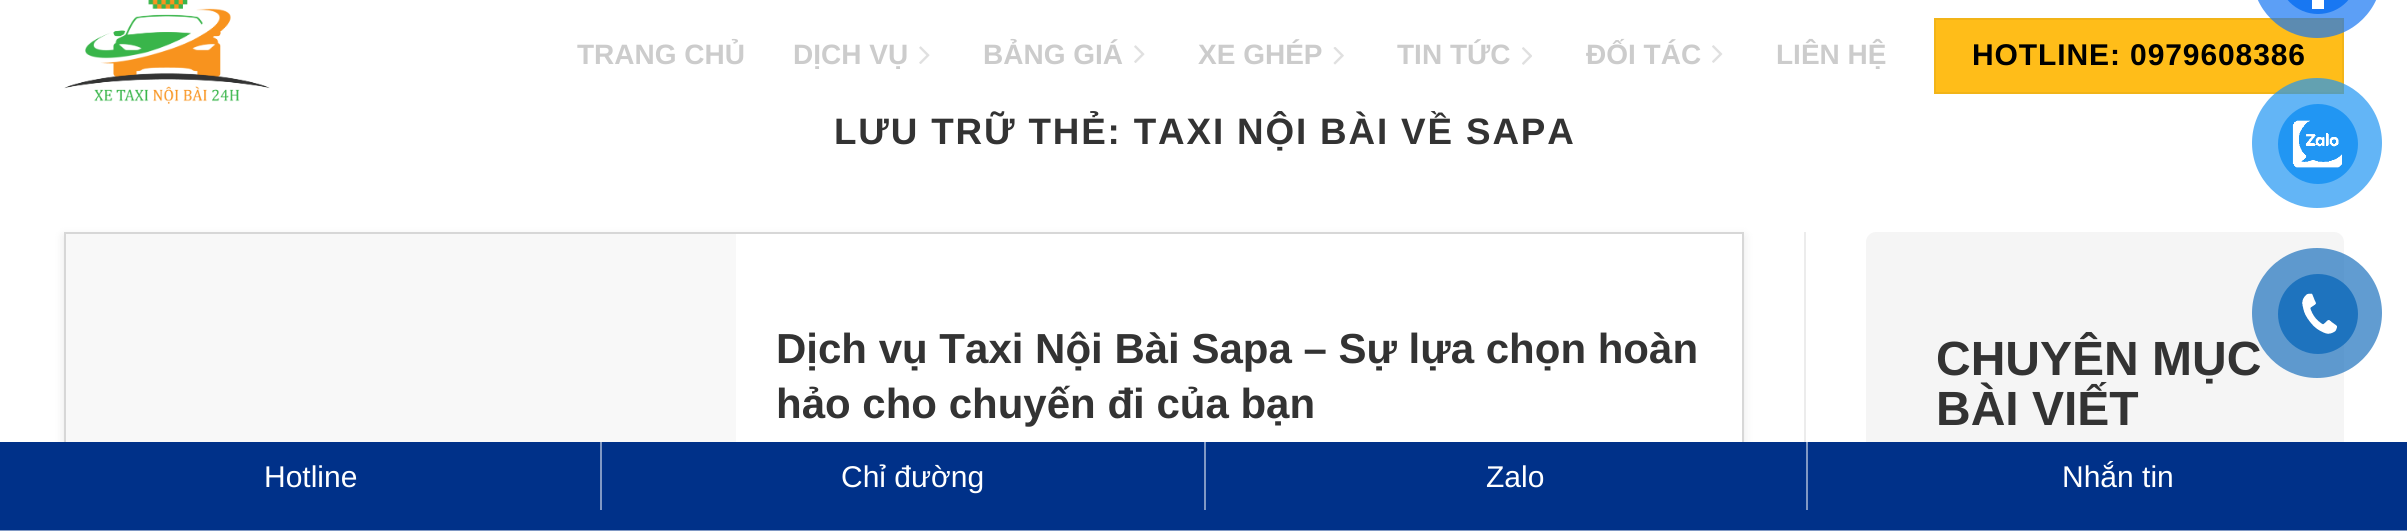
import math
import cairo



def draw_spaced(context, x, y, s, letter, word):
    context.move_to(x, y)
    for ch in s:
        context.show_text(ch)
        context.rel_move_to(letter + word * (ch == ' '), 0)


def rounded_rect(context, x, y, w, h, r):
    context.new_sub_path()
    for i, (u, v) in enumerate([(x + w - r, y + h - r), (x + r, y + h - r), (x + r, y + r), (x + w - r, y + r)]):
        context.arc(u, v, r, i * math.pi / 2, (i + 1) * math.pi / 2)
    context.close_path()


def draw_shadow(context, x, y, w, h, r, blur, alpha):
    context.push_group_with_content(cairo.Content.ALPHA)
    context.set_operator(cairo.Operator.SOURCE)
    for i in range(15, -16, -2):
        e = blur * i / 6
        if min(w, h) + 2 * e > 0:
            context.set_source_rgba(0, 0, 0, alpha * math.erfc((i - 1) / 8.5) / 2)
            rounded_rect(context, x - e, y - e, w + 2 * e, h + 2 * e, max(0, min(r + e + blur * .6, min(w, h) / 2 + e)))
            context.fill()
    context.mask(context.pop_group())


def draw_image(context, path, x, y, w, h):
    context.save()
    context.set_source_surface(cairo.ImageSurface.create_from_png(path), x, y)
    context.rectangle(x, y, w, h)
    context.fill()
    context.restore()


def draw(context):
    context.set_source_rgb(1, 1, 1)
    context.paint()
    draw_image(context, "images/1.png", 64, 0, 206, 104)
    draw_image(context, "images/2.png", 919, 46, 11, 18)
    draw_image(context, "images/3.png", 1134, 45, 11, 18)
    draw_image(context, "images/4.png", 1333, 47, 11, 18)
    draw_image(context, "images/5.png", 1522, 47, 10, 18)
    draw_image(context, "images/6.png", 1712, 45, 11, 18)
    context.set_source_rgb(1, 189 / 255, 25 / 255)
    context.rectangle(1935, 19, 408, 74)
    context.fill_preserve()
    context.set_source_rgb(242 / 255, 180 / 255, 24 / 255)
    context.stroke()
    context.save()
    context.set_fill_rule(cairo.FillRule.EVEN_ODD)
    context.new_path()
    context.move_to(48, 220)
    context.line_to(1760, 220)
    context.line_to(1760, 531)
    context.line_to(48, 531)
    context.close_path()
    context.move_to(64, 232)
    context.line_to(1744, 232)
    context.line_to(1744, 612)
    context.line_to(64, 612)
    context.close_path()
    context.clip()
    context.set_source_rgb(137 / 255, 137 / 255, 137 / 255)
    draw_shadow(context, 64, 236, 1680, 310, 0, 5, 0.2)
    context.restore()
    context.rectangle(65, 233, 1678, 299)
    context.set_source_rgb(215 / 255, 215 / 255, 215 / 255)
    context.stroke()
    context.set_source_rgb(248 / 255, 248 / 255, 248 / 255)
    context.rectangle(66, 234, 670, 208)
    context.fill()
    context.set_source_rgb(236 / 255, 236 / 255, 236 / 255)
    context.rectangle(1804, 232, 2, 210)
    context.fill()
    context.set_source_rgb(245 / 255, 245 / 255, 245 / 255)
    rounded_rect(context, 1866, 232, 478, 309, 10)
    context.fill()
    context.set_source_rgba(24 / 255, 119 / 255, 242 / 255, 0.7)
    rounded_rect(context, 2252, -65, 130, 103, 65)
    context.fill()
    context.set_source_rgb(24 / 255, 119 / 255, 242 / 255)
    rounded_rect(context, 2278, -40, 80, 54, 40)
    context.fill()
    context.set_source_rgb(1, 1, 1)
    context.rectangle(2312, 0, 12, 9)
    context.fill()
    context.set_source_rgba(33 / 255, 150 / 255, 243 / 255, 0.7)
    context.arc(2317, 143, 65, 0, 2 * math.pi)
    context.fill()
    context.set_source_rgb(33 / 255, 150 / 255, 243 / 255)
    context.arc(2318, 144, 40, 0, 2 * math.pi)
    context.fill()
    draw_image(context, "images/7.png", 2292, 120, 50, 48)
    context.set_source_rgb(0, 49 / 255, 137 / 255)
    context.rectangle(0, 442, 2407, 88)
    context.fill()
    context.set_source_rgb(128 / 255, 152 / 255, 196 / 255)
    context.rectangle(0, 530, 2407, 1)
    context.fill()
    context.rectangle(600, 442, 2, 68)
    context.fill()
    context.rectangle(1204, 442, 2, 68)
    context.fill()
    context.rectangle(1806, 442, 2, 68)
    context.fill()
    context.select_font_face("Liberation Sans", cairo.FontSlant.NORMAL, cairo.FontWeight.BOLD)
    context.set_font_size(28)
    context.set_source_rgb(204 / 255, 204 / 255, 204 / 255)
    context.move_to(577, 64)
    context.show_text("TRANG CHỦ")
    context.move_to(793, 64)
    context.show_text("DỊCH VỤ")
    context.move_to(983, 64)
    context.show_text("BẢNG GIÁ")
    context.move_to(1198, 64)
    context.show_text("XE GHÉP")
    context.move_to(1397, 64)
    context.show_text("TIN TỨC")
    context.move_to(1586, 64)
    context.show_text("ĐỐI TÁC")
    context.move_to(1776, 64)
    context.show_text("LIÊN HỆ")
    context.set_font_size(30)
    context.set_source_rgb(0, 0, 0)
    draw_spaced(context, 1972, 65, "HOTLINE: 0979608386", 0.9, 0)
    context.set_font_size(36.8)
    context.set_source_rgb(51 / 255, 51 / 255, 51 / 255)
    draw_spaced(context, 834, 144, "LƯU TRỮ THẺ: TAXI NỘI BÀI VỀ SAPA", 1.85, 0)
    context.set_font_size(42)
    context.move_to(776, 363)
    context.show_text("Dịch vụ Taxi Nội Bài Sapa – Sự lựa chọn hoàn")
    context.move_to(776, 418)
    context.show_text("hảo cho chuyến đi của bạn")
    context.set_font_size(48)
    context.move_to(1936, 375)
    context.show_text("CHUYÊN MỤC")
    context.move_to(1936, 425)
    context.show_text("BÀI VIẾT")
    context.set_source_rgba(30 / 255, 115 / 255, 190 / 255, 0.7)
    context.new_path()
    context.arc(2317, 313, 65, 0, 2 * math.pi)
    context.fill()
    context.set_source_rgb(30 / 255, 115 / 255, 190 / 255)
    context.arc(2318, 314, 40, 0, 2 * math.pi)
    context.fill()
    draw_image(context, "images/8.png", 2302, 293, 35, 41)
    context.select_font_face("Liberation Sans")
    context.set_font_size(30)
    context.set_source_rgb(1, 1, 1)
    context.move_to(264, 487)
    context.show_text("Hotline")
    context.move_to(841, 487)
    context.show_text("Chỉ đường")
    context.move_to(1486, 487)
    context.show_text("Zalo")
    context.move_to(2062, 487)
    context.show_text("Nhắn tin")


surface = cairo.ImageSurface(cairo.Format.RGB24, 2407, 531)
context = cairo.Context(surface)
options = cairo.FontOptions()
options.set_hint_metrics(cairo.HintMetrics.OFF)
options.set_hint_style(cairo.HintStyle.NONE)
context.set_font_options(options)
context.set_miter_limit(4)
draw(context)
surface.write_to_png("out.png")
